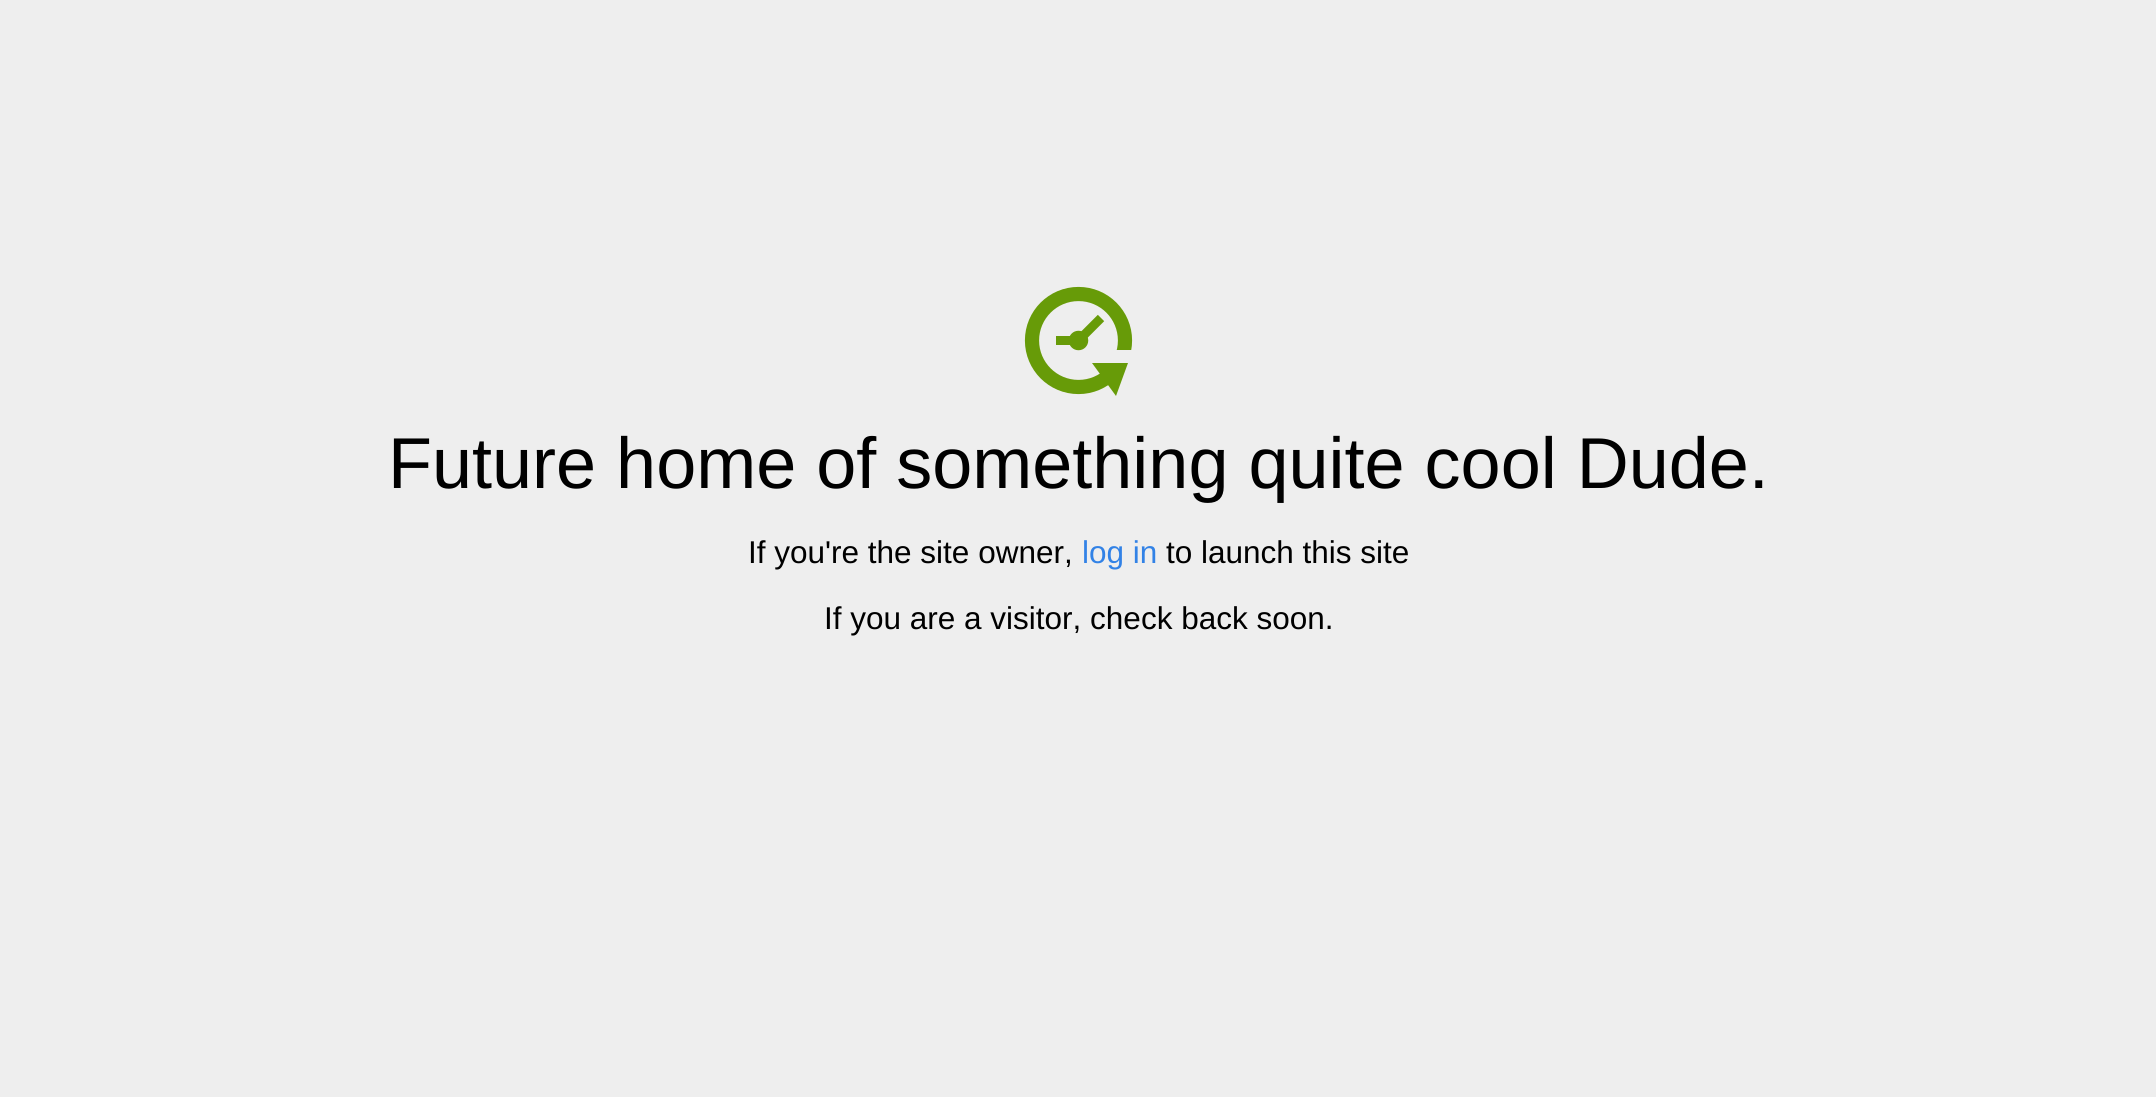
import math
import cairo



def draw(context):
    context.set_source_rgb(238 / 255, 238 / 255, 238 / 255)
    context.paint()
    context.arc(1078.5, 340.5, 46.5, 0, 2 * math.pi)
    context.set_source_rgb(103 / 255, 155 / 255, 8 / 255)
    context.set_line_width(14.2)
    context.stroke()
    context.arc(1078.5, 340.5, 9, 0, 2 * math.pi)
    context.fill_preserve()
    context.set_line_width(1.5)
    context.stroke()
    context.new_path()
    context.move_to(1101, 318)
    context.line_to(1078.5, 340.5)
    context.set_line_width(9)
    context.stroke()
    context.rectangle(1056, 336, 14, 9)
    context.fill()
    context.set_source_rgb(238 / 255, 238 / 255, 238 / 255)
    context.rectangle(1110, 350, 22, 13)
    context.fill()
    context.set_source_rgb(103 / 255, 155 / 255, 8 / 255)
    context.new_path()
    context.move_to(1092, 363)
    context.line_to(1128, 363)
    context.line_to(1116, 396)
    context.close_path()
    context.fill()
    context.select_font_face("Liberation Sans")
    context.set_font_size(72)
    context.set_source_rgb(0, 0, 0)
    context.move_to(388, 488)
    context.show_text("Future home of something quite cool Dude.")
    context.set_font_size(31.5)
    context.move_to(748, 563)
    context.show_text("If you're the site owner,")
    context.set_source_rgb(50 / 255, 130 / 255, 230 / 255)
    context.move_to(1082, 563)
    context.show_text("log in")
    context.set_source_rgb(0, 0, 0)
    context.move_to(1166, 563)
    context.show_text("to launch this site")
    context.move_to(824, 629)
    context.show_text("If you are a visitor, check back soon.")


surface = cairo.ImageSurface(cairo.Format.RGB24, 2156, 1097)
context = cairo.Context(surface)
options = cairo.FontOptions()
options.set_hint_metrics(cairo.HintMetrics.OFF)
options.set_hint_style(cairo.HintStyle.NONE)
context.set_font_options(options)
context.set_miter_limit(4)
draw(context)
surface.write_to_png("out.png")
